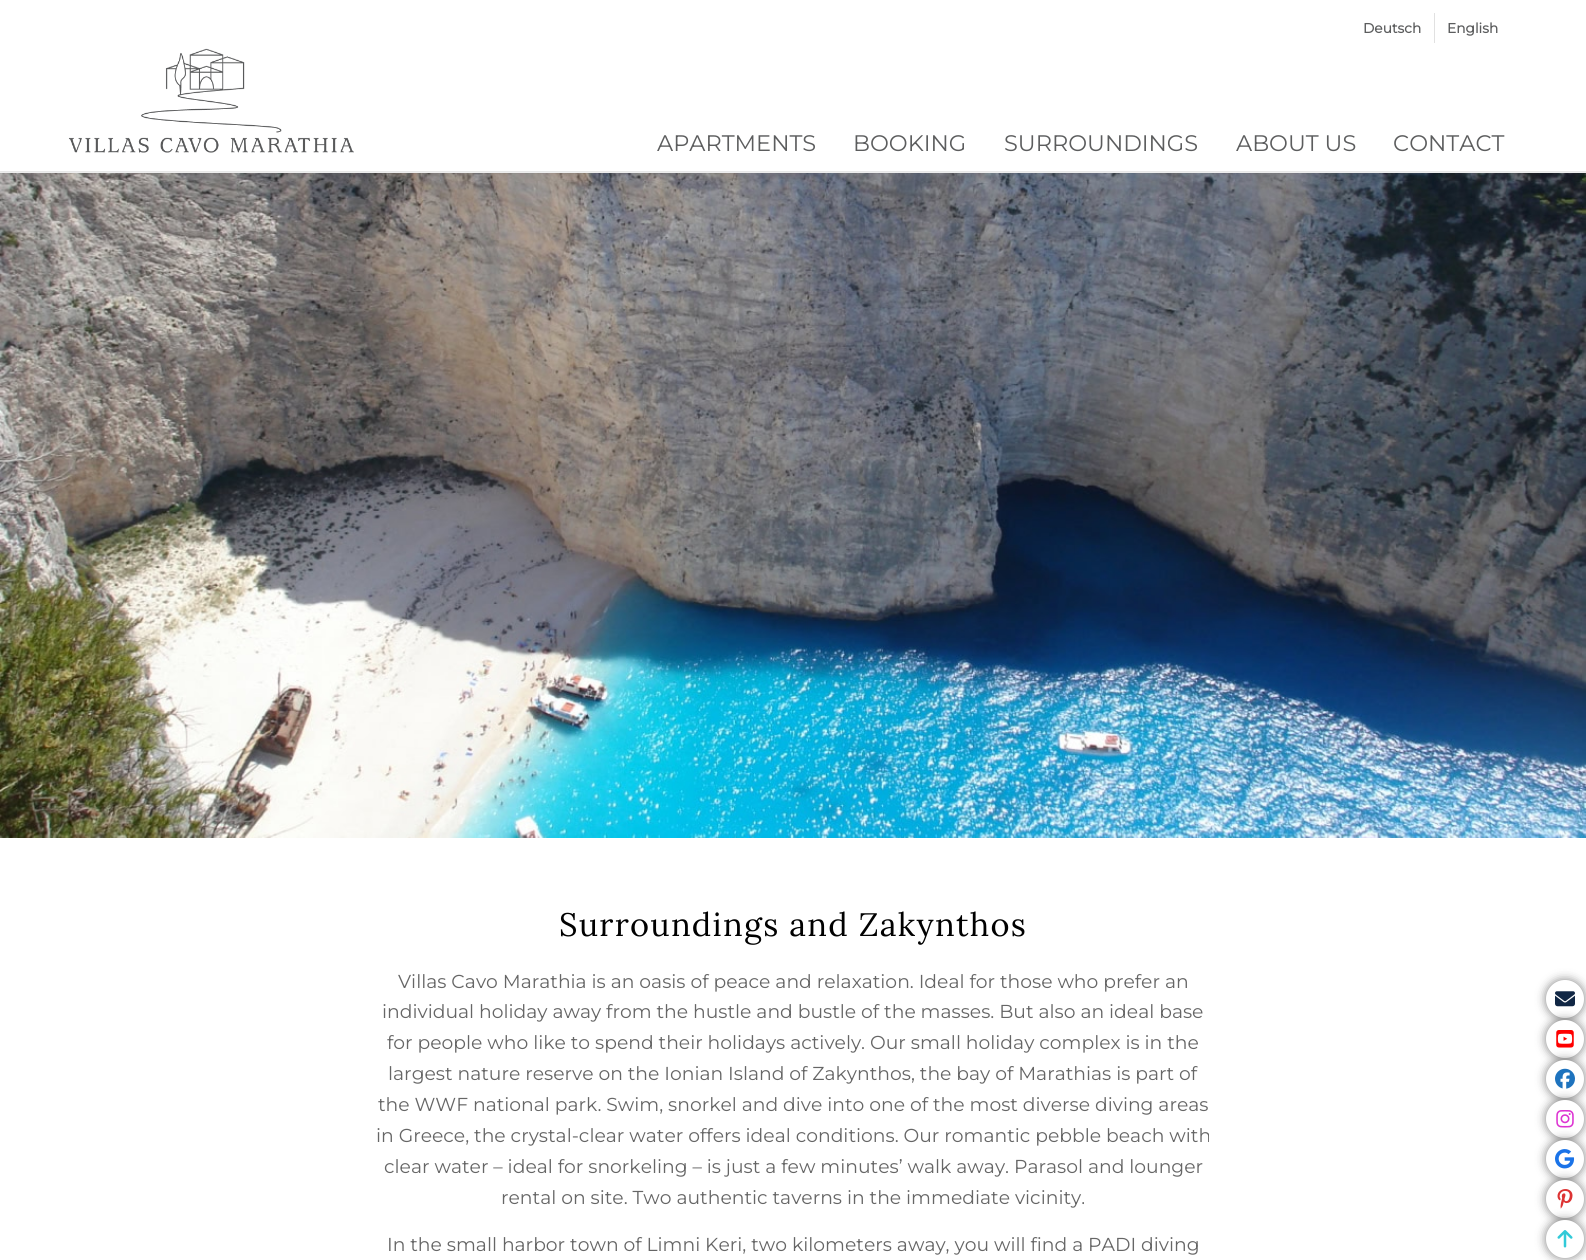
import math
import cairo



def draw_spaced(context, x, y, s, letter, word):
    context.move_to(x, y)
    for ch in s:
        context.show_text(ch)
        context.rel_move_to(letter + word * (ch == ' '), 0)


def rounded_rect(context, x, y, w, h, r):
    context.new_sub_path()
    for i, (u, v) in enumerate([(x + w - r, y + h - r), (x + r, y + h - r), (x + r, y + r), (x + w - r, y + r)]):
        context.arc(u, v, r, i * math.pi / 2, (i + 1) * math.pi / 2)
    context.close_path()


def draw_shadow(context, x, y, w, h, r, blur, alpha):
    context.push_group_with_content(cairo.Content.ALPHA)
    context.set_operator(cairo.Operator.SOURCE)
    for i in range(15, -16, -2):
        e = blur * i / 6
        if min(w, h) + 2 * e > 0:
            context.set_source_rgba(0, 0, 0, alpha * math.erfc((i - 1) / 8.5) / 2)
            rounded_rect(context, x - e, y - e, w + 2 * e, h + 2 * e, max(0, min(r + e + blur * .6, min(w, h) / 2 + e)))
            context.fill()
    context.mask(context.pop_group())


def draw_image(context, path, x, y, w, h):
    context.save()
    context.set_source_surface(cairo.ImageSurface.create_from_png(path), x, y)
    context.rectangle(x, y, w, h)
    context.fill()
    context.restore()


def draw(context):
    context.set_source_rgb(1, 1, 1)
    context.paint()
    draw_image(context, "images/2.png", 0, 173, 1586, 665)
    context.save()
    context.rectangle(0, 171, 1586, 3)
    context.clip()
    context.set_source_rgb(0, 0, 0)
    draw_shadow(context, -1, -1, 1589, 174, 0, 1, 0.1)
    context.restore()
    context.set_source_rgb(225 / 255, 225 / 255, 225 / 255)
    context.rectangle(1434, 13, 1, 30)
    context.fill()
    draw_image(context, "images/1.png", 68, 48, 286, 105)
    context.set_source_rgb(0, 0, 0)
    draw_shadow(context, 1546, 980, 38, 38, 19, 5, 0.5)
    context.set_source_rgb(1, 1, 1)
    context.arc(1565, 999, 19, 0, 2 * math.pi)
    context.fill()
    draw_image(context, "images/3.png", 1555, 991, 20, 16)
    context.set_source_rgb(0, 0, 0)
    draw_shadow(context, 1546, 1020, 38, 38, 19, 5, 0.5)
    context.set_source_rgb(1, 1, 1)
    context.arc(1565, 1039, 19, 0, 2 * math.pi)
    context.fill()
    draw_image(context, "images/4.png", 1556, 1030, 18, 18)
    context.set_source_rgb(0, 0, 0)
    draw_shadow(context, 1546, 1060, 38, 38, 19, 5, 0.5)
    context.set_source_rgb(1, 1, 1)
    context.arc(1565, 1079, 19, 0, 2 * math.pi)
    context.fill()
    draw_image(context, "images/5.png", 1555, 1068, 20, 21)
    context.set_source_rgb(0, 0, 0)
    draw_shadow(context, 1546, 1100, 38, 38, 19, 5, 0.5)
    context.set_source_rgb(1, 1, 1)
    context.arc(1565, 1119, 19, 0, 2 * math.pi)
    context.fill()
    draw_image(context, "images/6.png", 1556, 1110, 18, 18)
    context.set_source_rgb(0, 0, 0)
    draw_shadow(context, 1546, 1140, 38, 38, 19, 5, 0.5)
    context.set_source_rgb(1, 1, 1)
    context.arc(1565, 1159, 19, 0, 2 * math.pi)
    context.fill()
    draw_image(context, "images/7.png", 1555, 1149, 20, 20)
    context.set_source_rgb(0, 0, 0)
    draw_shadow(context, 1546, 1180, 38, 38, 19, 5, 0.5)
    context.set_source_rgb(1, 1, 1)
    context.arc(1565, 1199, 19, 0, 2 * math.pi)
    context.fill()
    draw_image(context, "images/8.png", 1557, 1189, 16, 20)
    context.set_source_rgb(0, 0, 0)
    draw_shadow(context, 1546, 1220, 38, 38, 19, 5, 0.5)
    context.set_source_rgb(1, 1, 1)
    context.arc(1565, 1239, 19, 0, 2 * math.pi)
    context.fill()
    draw_image(context, "images/9.png", 1557, 1230, 16, 18)
    context.select_font_face("Montserrat", cairo.FontSlant.NORMAL, cairo.FontWeight.BOLD)
    context.set_font_size(13.75)
    context.set_source_rgb(92 / 255, 93 / 255, 94 / 255)
    context.move_to(1363, 33)
    context.show_text("Deutsch")
    context.move_to(1447, 33)
    context.show_text("English")
    context.select_font_face("Montserrat")
    context.set_font_size(22.5)
    context.move_to(657, 151)
    context.show_text("APARTMENTS")
    context.move_to(853, 151)
    context.show_text("BOOKING")
    context.move_to(1004, 151)
    context.show_text("SURROUNDINGS")
    context.move_to(1236, 151)
    context.show_text("ABOUT US")
    context.move_to(1393, 151)
    context.show_text("CONTACT")
    context.select_font_face("Lora")
    context.set_font_size(32.5)
    context.set_source_rgb(0, 0, 0)
    draw_spaced(context, 559, 936, "Surroundings and Zakynthos", 1.25, 0)
    context.select_font_face("Montserrat")
    context.set_font_size(18.75)
    context.set_source_rgb(102 / 255, 102 / 255, 102 / 255)
    context.move_to(398, 988)
    context.show_text("Villas Cavo Marathia is an oasis of peace and relaxation. Ideal for those who prefer an")
    context.move_to(382, 1018)
    context.show_text("individual holiday away from the hustle and bustle of the masses. But also an ideal base")
    context.move_to(387, 1049)
    context.show_text("for people who like to spend their holidays actively. Our small holiday complex is in the")
    context.move_to(388, 1080)
    context.show_text("largest nature reserve on the Ionian Island of Zakynthos, the bay of Marathias is part of")
    context.move_to(378, 1111)
    context.show_text("the WWF national park. Swim, snorkel and dive into one of the most diverse diving areas")
    context.move_to(376, 1142)
    context.show_text("in Greece, the crystal-clear water offers ideal conditions. Our romantic pebble beach with")
    context.move_to(384, 1173)
    context.show_text("clear water – ideal for snorkeling – is just a few minutes’ walk away. Parasol and lounger")
    context.move_to(501, 1204)
    context.show_text("rental on site. Two authentic taverns in the immediate vicinity.")
    context.move_to(387, 1251)
    context.show_text("In the small harbor town of Limni Keri, two kilometers away, you will find a PADI diving")


surface = cairo.ImageSurface(cairo.Format.RGB24, 1586, 1260)
context = cairo.Context(surface)
options = cairo.FontOptions()
options.set_hint_metrics(cairo.HintMetrics.OFF)
options.set_hint_style(cairo.HintStyle.NONE)
context.set_font_options(options)
context.set_miter_limit(4)
draw(context)
surface.write_to_png("out.png")
